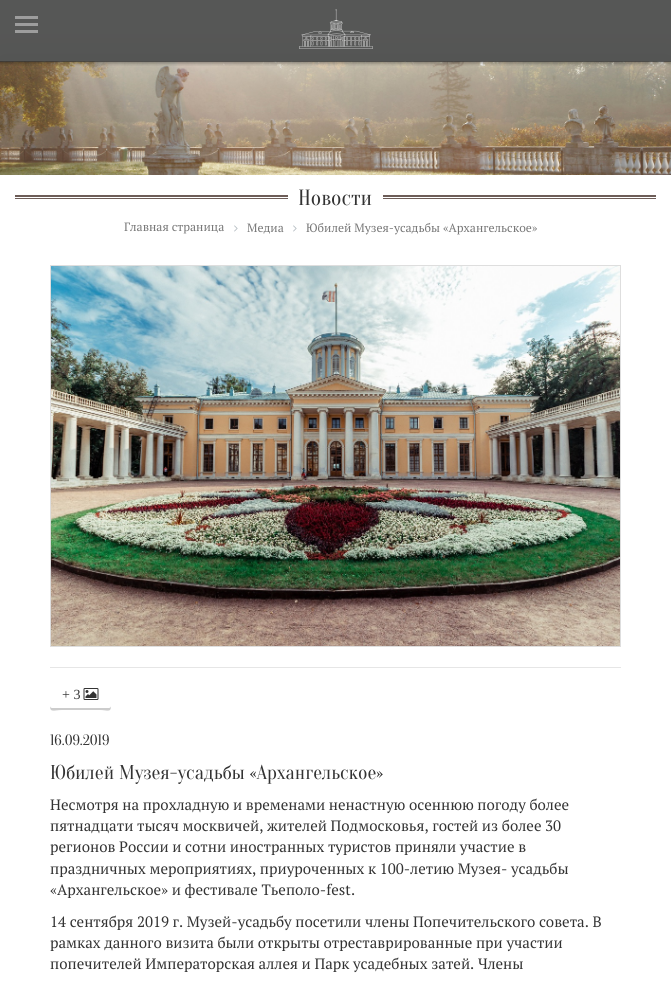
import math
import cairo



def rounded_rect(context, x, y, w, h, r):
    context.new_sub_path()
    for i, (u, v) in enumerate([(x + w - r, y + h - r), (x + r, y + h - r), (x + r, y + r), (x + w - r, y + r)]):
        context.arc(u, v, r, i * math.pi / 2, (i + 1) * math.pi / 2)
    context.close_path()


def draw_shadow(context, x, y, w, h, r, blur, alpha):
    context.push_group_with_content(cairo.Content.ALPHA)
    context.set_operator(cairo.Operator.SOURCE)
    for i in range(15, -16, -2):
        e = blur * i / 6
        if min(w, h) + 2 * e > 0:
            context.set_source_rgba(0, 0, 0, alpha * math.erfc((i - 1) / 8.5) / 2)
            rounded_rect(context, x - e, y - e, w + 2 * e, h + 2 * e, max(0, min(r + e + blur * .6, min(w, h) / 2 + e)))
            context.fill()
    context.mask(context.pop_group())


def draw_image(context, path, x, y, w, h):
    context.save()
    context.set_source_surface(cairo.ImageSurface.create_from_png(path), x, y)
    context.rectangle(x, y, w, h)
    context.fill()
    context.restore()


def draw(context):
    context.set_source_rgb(220 / 255, 223 / 255, 219 / 255)
    context.paint()
    context.set_source_rgb(0, 0, 0)
    draw_shadow(context, 0, 61, 671, 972, 0, 15, 0.1)
    draw_image(context, "images/2.png", 0, 61, 671, 114)
    context.save()
    context.rectangle(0, 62, 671, 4)
    context.clip()
    draw_shadow(context, 0, 1, 671, 62, 0, 2, 0.4)
    context.restore()
    context.set_source_rgba(53 / 255, 53 / 255, 53 / 255, 0.8)
    context.rectangle(0, 0, 671, 62)
    context.fill()
    draw_image(context, "images/1.png", 299, 9, 74, 40)
    context.set_source_rgb(157 / 255, 157 / 255, 157 / 255)
    context.rectangle(15, 23, 23, 3)
    context.fill()
    context.rectangle(15, 16, 23, 3)
    context.fill()
    context.rectangle(15, 30, 23, 3)
    context.fill()
    context.set_source_rgb(1, 1, 1)
    context.rectangle(0, 175, 671, 813)
    context.fill()
    context.set_source_rgb(109 / 255, 93 / 255, 88 / 255)
    context.rectangle(15, 195, 641, 2)
    context.fill()
    context.rectangle(15, 198, 641, 1)
    context.fill()
    context.set_source_rgb(1, 1, 1)
    context.rectangle(288, 195, 95, 4)
    context.fill()
    draw_image(context, "images/3.png", 234, 225, 4, 7)
    draw_image(context, "images/3.png", 293, 225, 4, 7)
    context.rectangle(50.5, 265.5, 570, 381)
    context.set_source_rgb(222 / 255, 222 / 255, 222 / 255)
    context.set_line_width(1)
    context.stroke()
    draw_image(context, "images/4.png", 51, 266, 569, 380)
    context.set_source_rgb(230 / 255, 230 / 255, 230 / 255)
    context.rectangle(50, 667, 571, 1)
    context.fill()
    context.set_source_rgb(204 / 255, 204 / 255, 204 / 255)
    context.new_path()
    context.move_to(50, 706)
    context.curve_to(50, 713, 54, 710, 62, 710)
    context.line_to(100, 710)
    context.curve_to(107, 710, 111, 713, 111, 706)
    context.curve_to(111, 707, 110, 708, 109, 708)
    context.line_to(52, 708)
    context.curve_to(51, 708, 50, 707, 50, 706)
    context.close_path()
    context.fill()
    draw_image(context, "images/5.png", 83, 688, 16, 12)
    context.select_font_face("Oranienbaum")
    context.set_font_size(22)
    context.set_source_rgb(51 / 255, 51 / 255, 51 / 255)
    context.move_to(298, 205)
    context.show_text("Новости")
    context.select_font_face("PT Serif")
    context.set_font_size(12)
    context.set_source_rgb(119 / 255, 119 / 255, 119 / 255)
    context.move_to(124, 231)
    context.show_text("Главная страница")
    context.move_to(247, 232)
    context.show_text("Медиа")
    context.move_to(306, 232)
    context.show_text("Юбилей Музея-усадьбы «Архангельское»")
    context.select_font_face("Liberation Serif")
    context.set_font_size(14)
    context.set_source_rgb(51 / 255, 51 / 255, 51 / 255)
    context.move_to(62, 699)
    context.show_text("+ 3")
    context.select_font_face("Oranienbaum")
    context.set_font_size(15)
    context.move_to(50, 745)
    context.show_text("16.09.2019")
    context.set_font_size(20)
    context.move_to(50, 779)
    context.show_text("Юбилей Музея-усадьбы «Архангельское»")
    context.select_font_face("PT Serif")
    context.set_font_size(15)
    context.move_to(50, 810)
    context.show_text("Несмотря на прохладную и временами ненастную осеннюю погоду более")
    context.move_to(50, 831)
    context.show_text("пятнадцати тысяч москвичей, жителей Подмосковья, гостей из более 30")
    context.move_to(50, 852)
    context.show_text("регионов России и сотни иностранных туристов приняли участие в")
    context.move_to(50, 874)
    context.show_text("праздничных мероприятиях, приуроченных к 100-летию Музея- усадьбы")
    context.move_to(50, 895)
    context.show_text("«Архангельское» и фестивале Тьеполо-fest.")
    context.move_to(50, 927)
    context.show_text("14 сентября 2019 г. Музей-усадьбу посетили члены Попечительского совета. В")
    context.move_to(50, 948)
    context.show_text("рамках данного визита были открыты отреставрированные при участии")
    context.move_to(50, 969)
    context.show_text("попечителей Императорская аллея и Парк усадебных затей. Члены")


surface = cairo.ImageSurface(cairo.Format.RGB24, 671, 988)
context = cairo.Context(surface)
options = cairo.FontOptions()
options.set_hint_metrics(cairo.HintMetrics.OFF)
options.set_hint_style(cairo.HintStyle.NONE)
context.set_font_options(options)
context.set_miter_limit(4)
draw(context)
surface.write_to_png("out.png")
